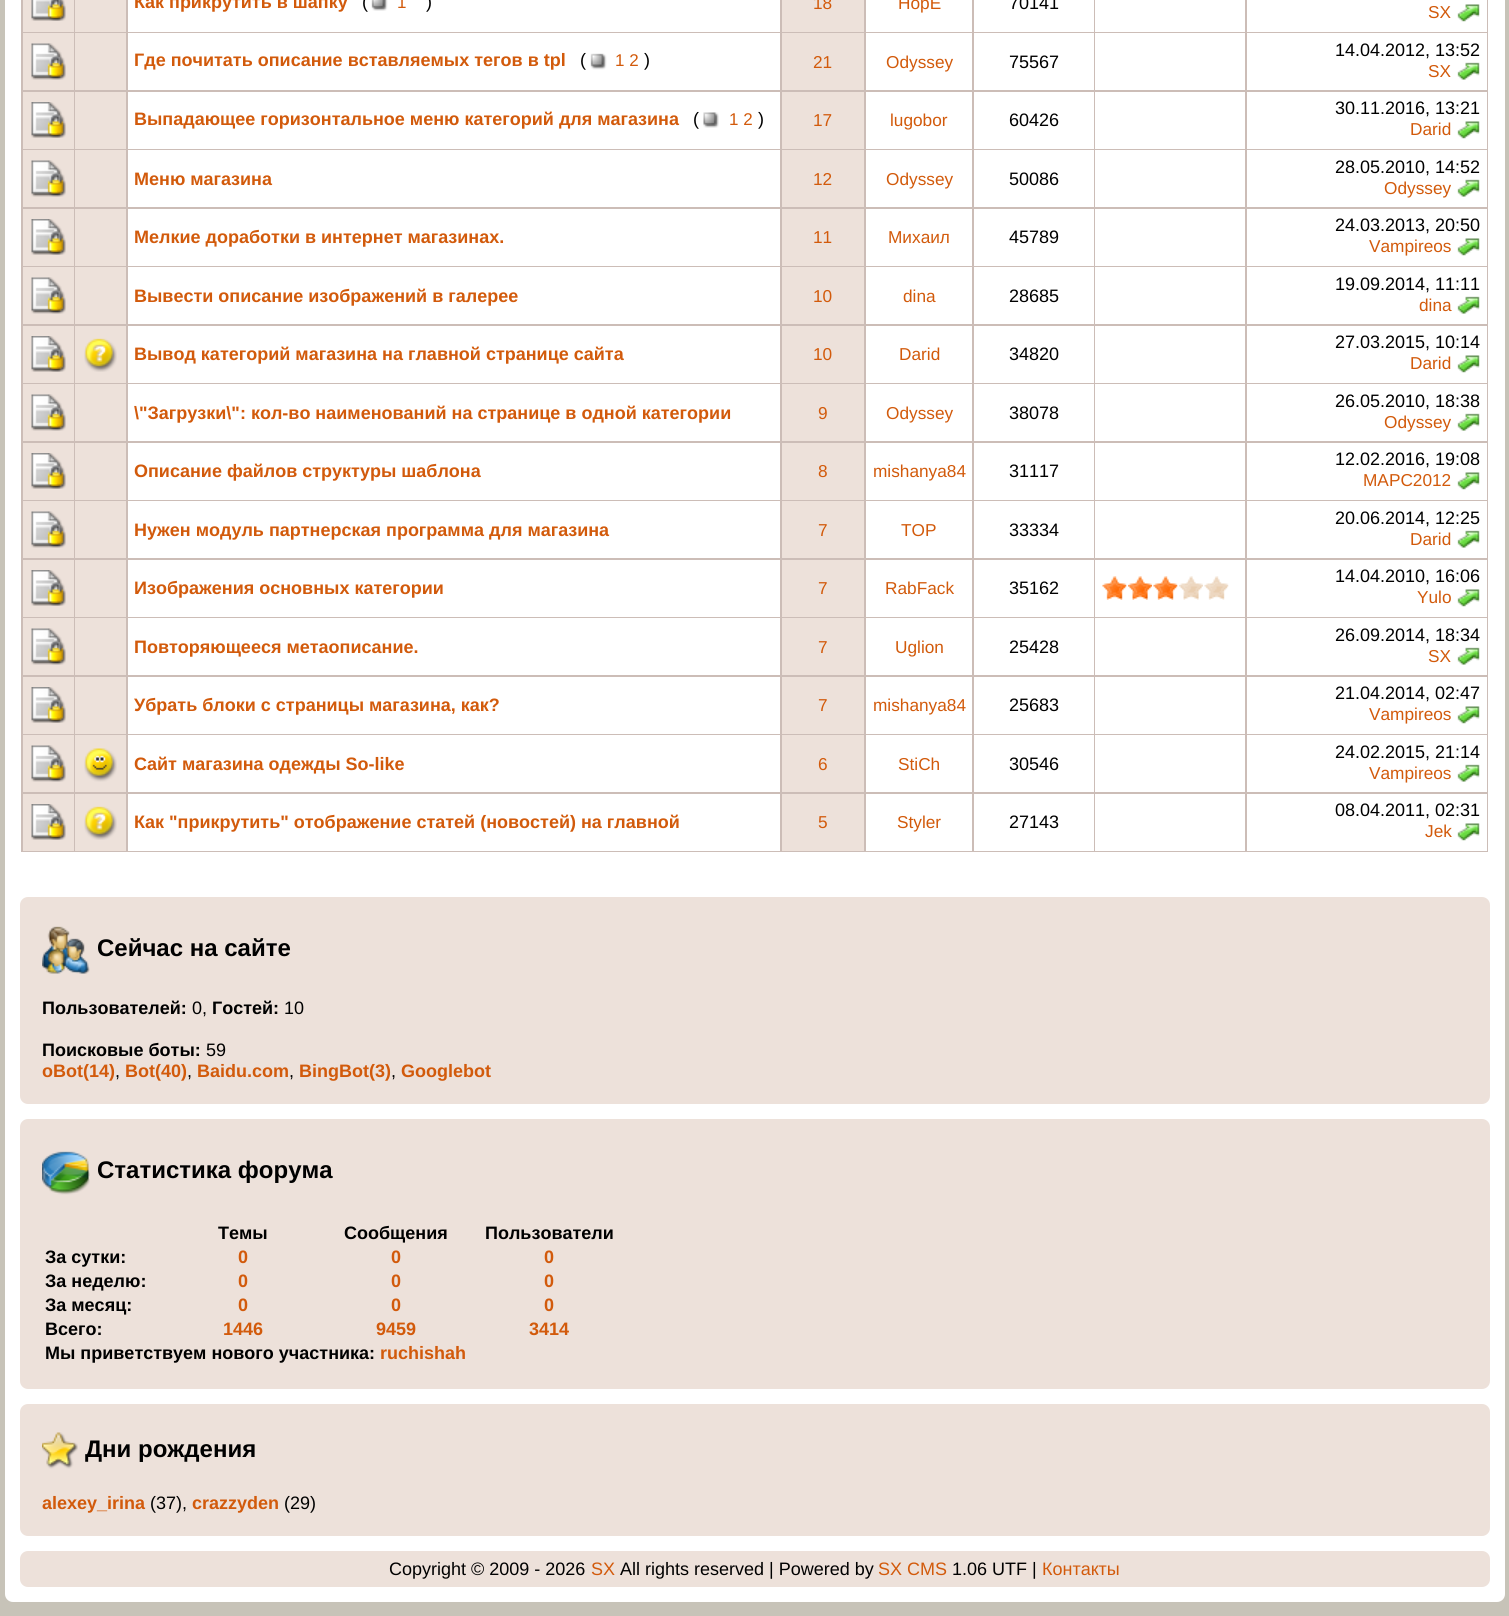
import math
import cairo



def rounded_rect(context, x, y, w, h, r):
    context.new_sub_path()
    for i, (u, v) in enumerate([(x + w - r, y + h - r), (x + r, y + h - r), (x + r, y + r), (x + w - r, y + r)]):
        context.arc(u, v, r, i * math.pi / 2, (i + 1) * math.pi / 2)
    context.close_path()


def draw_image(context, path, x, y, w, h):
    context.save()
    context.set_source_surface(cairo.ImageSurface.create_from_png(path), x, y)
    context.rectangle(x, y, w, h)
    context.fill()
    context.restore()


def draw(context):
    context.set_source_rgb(199 / 255, 195 / 255, 184 / 255)
    context.paint()
    context.set_source_rgb(1, 1, 1)
    rounded_rect(context, 5, -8, 1500, 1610, 8)
    context.fill()
    context.set_source_rgb(204 / 255, 189 / 255, 183 / 255)
    context.rectangle(21, 0, 1467, 852)
    context.fill()
    context.set_source_rgb(237 / 255, 225 / 255, 218 / 255)
    context.rectangle(23, 0, 51, 32)
    context.fill()
    draw_image(context, "images/1.png", 31, 0, 35, 21)
    context.rectangle(75, 0, 51, 32)
    context.fill()
    context.set_source_rgb(1, 1, 1)
    context.rectangle(128, 0, 652, 32)
    context.fill()
    draw_image(context, "images/2.png", 371, 0, 17, 11)
    context.set_source_rgb(237 / 255, 225 / 255, 218 / 255)
    context.rectangle(782, 0, 82, 32)
    context.fill()
    context.set_source_rgb(1, 1, 1)
    context.rectangle(866, 0, 106, 32)
    context.fill()
    context.rectangle(974, 0, 120, 32)
    context.fill()
    context.rectangle(1095, 0, 150, 32)
    context.fill()
    context.rectangle(1247, 0, 240, 32)
    context.fill()
    draw_image(context, "images/3.png", 1457, 4, 23, 18)
    context.set_source_rgb(237 / 255, 225 / 255, 218 / 255)
    context.rectangle(23, 33, 51, 57)
    context.fill()
    draw_image(context, "images/4.png", 31, 43, 35, 37)
    context.rectangle(75, 33, 51, 57)
    context.fill()
    context.set_source_rgb(1, 1, 1)
    context.rectangle(128, 33, 652, 57)
    context.fill()
    draw_image(context, "images/5.png", 590, 53, 17, 17)
    context.set_source_rgb(237 / 255, 225 / 255, 218 / 255)
    context.rectangle(782, 33, 82, 57)
    context.fill()
    context.set_source_rgb(1, 1, 1)
    context.rectangle(866, 33, 106, 57)
    context.fill()
    context.rectangle(974, 33, 120, 57)
    context.fill()
    context.rectangle(1095, 33, 150, 57)
    context.fill()
    context.rectangle(1247, 33, 240, 57)
    context.fill()
    draw_image(context, "images/6.png", 1457, 62, 23, 18)
    context.set_source_rgb(237 / 255, 225 / 255, 218 / 255)
    context.rectangle(23, 92, 51, 57)
    context.fill()
    draw_image(context, "images/7.png", 31, 102, 35, 36)
    context.rectangle(75, 92, 51, 57)
    context.fill()
    context.set_source_rgb(1, 1, 1)
    context.rectangle(128, 92, 652, 57)
    context.fill()
    draw_image(context, "images/8.png", 703, 112, 16, 16)
    context.set_source_rgb(237 / 255, 225 / 255, 218 / 255)
    context.rectangle(782, 92, 82, 57)
    context.fill()
    context.set_source_rgb(1, 1, 1)
    context.rectangle(866, 92, 106, 57)
    context.fill()
    context.rectangle(974, 92, 120, 57)
    context.fill()
    context.rectangle(1095, 92, 150, 57)
    context.fill()
    context.rectangle(1247, 92, 240, 57)
    context.fill()
    draw_image(context, "images/3.png", 1457, 121, 23, 18)
    context.set_source_rgb(237 / 255, 225 / 255, 218 / 255)
    context.rectangle(23, 150, 51, 57)
    context.fill()
    draw_image(context, "images/4.png", 31, 160, 35, 37)
    context.rectangle(75, 150, 51, 57)
    context.fill()
    context.set_source_rgb(1, 1, 1)
    context.rectangle(128, 150, 652, 57)
    context.fill()
    context.set_source_rgb(237 / 255, 225 / 255, 218 / 255)
    context.rectangle(782, 150, 82, 57)
    context.fill()
    context.set_source_rgb(1, 1, 1)
    context.rectangle(866, 150, 106, 57)
    context.fill()
    context.rectangle(974, 150, 120, 57)
    context.fill()
    context.rectangle(1095, 150, 150, 57)
    context.fill()
    context.rectangle(1247, 150, 240, 57)
    context.fill()
    draw_image(context, "images/6.png", 1457, 179, 23, 18)
    context.set_source_rgb(237 / 255, 225 / 255, 218 / 255)
    context.rectangle(23, 209, 51, 57)
    context.fill()
    draw_image(context, "images/7.png", 31, 219, 35, 36)
    context.rectangle(75, 209, 51, 57)
    context.fill()
    context.set_source_rgb(1, 1, 1)
    context.rectangle(128, 209, 652, 57)
    context.fill()
    context.set_source_rgb(237 / 255, 225 / 255, 218 / 255)
    context.rectangle(782, 209, 82, 57)
    context.fill()
    context.set_source_rgb(1, 1, 1)
    context.rectangle(866, 209, 106, 57)
    context.fill()
    context.rectangle(974, 209, 120, 57)
    context.fill()
    context.rectangle(1095, 209, 150, 57)
    context.fill()
    context.rectangle(1247, 209, 240, 57)
    context.fill()
    draw_image(context, "images/3.png", 1457, 238, 23, 18)
    context.set_source_rgb(237 / 255, 225 / 255, 218 / 255)
    context.rectangle(23, 267, 51, 57)
    context.fill()
    draw_image(context, "images/4.png", 31, 277, 35, 37)
    context.rectangle(75, 267, 51, 57)
    context.fill()
    context.set_source_rgb(1, 1, 1)
    context.rectangle(128, 267, 652, 57)
    context.fill()
    context.set_source_rgb(237 / 255, 225 / 255, 218 / 255)
    context.rectangle(782, 267, 82, 57)
    context.fill()
    context.set_source_rgb(1, 1, 1)
    context.rectangle(866, 267, 106, 57)
    context.fill()
    context.rectangle(974, 267, 120, 57)
    context.fill()
    context.rectangle(1095, 267, 150, 57)
    context.fill()
    context.rectangle(1247, 267, 240, 57)
    context.fill()
    draw_image(context, "images/6.png", 1457, 296, 23, 18)
    context.set_source_rgb(237 / 255, 225 / 255, 218 / 255)
    context.rectangle(23, 326, 51, 57)
    context.fill()
    draw_image(context, "images/7.png", 31, 336, 35, 36)
    context.rectangle(75, 326, 51, 57)
    context.fill()
    draw_image(context, "images/9.png", 84, 338, 33, 34)
    context.set_source_rgb(1, 1, 1)
    context.rectangle(128, 326, 652, 57)
    context.fill()
    context.set_source_rgb(237 / 255, 225 / 255, 218 / 255)
    context.rectangle(782, 326, 82, 57)
    context.fill()
    context.set_source_rgb(1, 1, 1)
    context.rectangle(866, 326, 106, 57)
    context.fill()
    context.rectangle(974, 326, 120, 57)
    context.fill()
    context.rectangle(1095, 326, 150, 57)
    context.fill()
    context.rectangle(1247, 326, 240, 57)
    context.fill()
    draw_image(context, "images/3.png", 1457, 355, 23, 18)
    context.set_source_rgb(237 / 255, 225 / 255, 218 / 255)
    context.rectangle(23, 384, 51, 57)
    context.fill()
    draw_image(context, "images/4.png", 31, 394, 35, 37)
    context.rectangle(75, 384, 51, 57)
    context.fill()
    context.set_source_rgb(1, 1, 1)
    context.rectangle(128, 384, 652, 57)
    context.fill()
    context.set_source_rgb(237 / 255, 225 / 255, 218 / 255)
    context.rectangle(782, 384, 82, 57)
    context.fill()
    context.set_source_rgb(1, 1, 1)
    context.rectangle(866, 384, 106, 57)
    context.fill()
    context.rectangle(974, 384, 120, 57)
    context.fill()
    context.rectangle(1095, 384, 150, 57)
    context.fill()
    context.rectangle(1247, 384, 240, 57)
    context.fill()
    draw_image(context, "images/6.png", 1457, 413, 23, 18)
    context.set_source_rgb(237 / 255, 225 / 255, 218 / 255)
    context.rectangle(23, 443, 51, 57)
    context.fill()
    draw_image(context, "images/7.png", 31, 453, 35, 36)
    context.rectangle(75, 443, 51, 57)
    context.fill()
    context.set_source_rgb(1, 1, 1)
    context.rectangle(128, 443, 652, 57)
    context.fill()
    context.set_source_rgb(237 / 255, 225 / 255, 218 / 255)
    context.rectangle(782, 443, 82, 57)
    context.fill()
    context.set_source_rgb(1, 1, 1)
    context.rectangle(866, 443, 106, 57)
    context.fill()
    context.rectangle(974, 443, 120, 57)
    context.fill()
    context.rectangle(1095, 443, 150, 57)
    context.fill()
    context.rectangle(1247, 443, 240, 57)
    context.fill()
    draw_image(context, "images/3.png", 1457, 472, 23, 18)
    context.set_source_rgb(237 / 255, 225 / 255, 218 / 255)
    context.rectangle(23, 501, 51, 57)
    context.fill()
    draw_image(context, "images/4.png", 31, 511, 35, 37)
    context.rectangle(75, 501, 51, 57)
    context.fill()
    context.set_source_rgb(1, 1, 1)
    context.rectangle(128, 501, 652, 57)
    context.fill()
    context.set_source_rgb(237 / 255, 225 / 255, 218 / 255)
    context.rectangle(782, 501, 82, 57)
    context.fill()
    context.set_source_rgb(1, 1, 1)
    context.rectangle(866, 501, 106, 57)
    context.fill()
    context.rectangle(974, 501, 120, 57)
    context.fill()
    context.rectangle(1095, 501, 150, 57)
    context.fill()
    context.rectangle(1247, 501, 240, 57)
    context.fill()
    draw_image(context, "images/6.png", 1457, 530, 23, 18)
    context.set_source_rgb(237 / 255, 225 / 255, 218 / 255)
    context.rectangle(23, 560, 51, 57)
    context.fill()
    draw_image(context, "images/7.png", 31, 570, 35, 36)
    context.rectangle(75, 560, 51, 57)
    context.fill()
    context.set_source_rgb(1, 1, 1)
    context.rectangle(128, 560, 652, 57)
    context.fill()
    context.set_source_rgb(237 / 255, 225 / 255, 218 / 255)
    context.rectangle(782, 560, 82, 57)
    context.fill()
    context.set_source_rgb(1, 1, 1)
    context.rectangle(866, 560, 106, 57)
    context.fill()
    context.rectangle(974, 560, 120, 57)
    context.fill()
    context.rectangle(1095, 560, 150, 57)
    context.fill()
    draw_image(context, "images/10.png", 1102, 576, 25, 24)
    draw_image(context, "images/11.png", 1128, 576, 24, 24)
    draw_image(context, "images/12.png", 1153, 576, 25, 24)
    draw_image(context, "images/13.png", 1179, 576, 24, 24)
    draw_image(context, "images/14.png", 1204, 576, 25, 24)
    context.rectangle(1247, 560, 240, 57)
    context.fill()
    draw_image(context, "images/3.png", 1457, 589, 23, 18)
    context.set_source_rgb(237 / 255, 225 / 255, 218 / 255)
    context.rectangle(23, 618, 51, 57)
    context.fill()
    draw_image(context, "images/4.png", 31, 628, 35, 37)
    context.rectangle(75, 618, 51, 57)
    context.fill()
    context.set_source_rgb(1, 1, 1)
    context.rectangle(128, 618, 652, 57)
    context.fill()
    context.set_source_rgb(237 / 255, 225 / 255, 218 / 255)
    context.rectangle(782, 618, 82, 57)
    context.fill()
    context.set_source_rgb(1, 1, 1)
    context.rectangle(866, 618, 106, 57)
    context.fill()
    context.rectangle(974, 618, 120, 57)
    context.fill()
    context.rectangle(1095, 618, 150, 57)
    context.fill()
    context.rectangle(1247, 618, 240, 57)
    context.fill()
    draw_image(context, "images/6.png", 1457, 647, 23, 18)
    context.set_source_rgb(237 / 255, 225 / 255, 218 / 255)
    context.rectangle(23, 677, 51, 57)
    context.fill()
    draw_image(context, "images/7.png", 31, 687, 35, 36)
    context.rectangle(75, 677, 51, 57)
    context.fill()
    context.set_source_rgb(1, 1, 1)
    context.rectangle(128, 677, 652, 57)
    context.fill()
    context.set_source_rgb(237 / 255, 225 / 255, 218 / 255)
    context.rectangle(782, 677, 82, 57)
    context.fill()
    context.set_source_rgb(1, 1, 1)
    context.rectangle(866, 677, 106, 57)
    context.fill()
    context.rectangle(974, 677, 120, 57)
    context.fill()
    context.rectangle(1095, 677, 150, 57)
    context.fill()
    context.rectangle(1247, 677, 240, 57)
    context.fill()
    draw_image(context, "images/3.png", 1457, 706, 23, 18)
    context.set_source_rgb(237 / 255, 225 / 255, 218 / 255)
    context.rectangle(23, 735, 51, 57)
    context.fill()
    draw_image(context, "images/4.png", 31, 745, 35, 37)
    context.rectangle(75, 735, 51, 57)
    context.fill()
    draw_image(context, "images/15.png", 84, 748, 33, 34)
    context.set_source_rgb(1, 1, 1)
    context.rectangle(128, 735, 652, 57)
    context.fill()
    context.set_source_rgb(237 / 255, 225 / 255, 218 / 255)
    context.rectangle(782, 735, 82, 57)
    context.fill()
    context.set_source_rgb(1, 1, 1)
    context.rectangle(866, 735, 106, 57)
    context.fill()
    context.rectangle(974, 735, 120, 57)
    context.fill()
    context.rectangle(1095, 735, 150, 57)
    context.fill()
    context.rectangle(1247, 735, 240, 57)
    context.fill()
    draw_image(context, "images/6.png", 1457, 764, 23, 18)
    context.set_source_rgb(237 / 255, 225 / 255, 218 / 255)
    context.rectangle(23, 794, 51, 57)
    context.fill()
    draw_image(context, "images/7.png", 31, 804, 35, 36)
    context.rectangle(75, 794, 51, 57)
    context.fill()
    draw_image(context, "images/9.png", 84, 806, 33, 34)
    context.set_source_rgb(1, 1, 1)
    context.rectangle(128, 794, 652, 57)
    context.fill()
    context.set_source_rgb(237 / 255, 225 / 255, 218 / 255)
    context.rectangle(782, 794, 82, 57)
    context.fill()
    context.set_source_rgb(1, 1, 1)
    context.rectangle(866, 794, 106, 57)
    context.fill()
    context.rectangle(974, 794, 120, 57)
    context.fill()
    context.rectangle(1095, 794, 150, 57)
    context.fill()
    context.rectangle(1247, 794, 240, 57)
    context.fill()
    draw_image(context, "images/3.png", 1457, 823, 23, 18)
    context.set_source_rgb(237 / 255, 225 / 255, 218 / 255)
    rounded_rect(context, 20, 897, 1470, 207, 8)
    context.fill()
    draw_image(context, "images/16.png", 42, 926, 48, 48)
    rounded_rect(context, 20, 1119, 1470, 270, 8)
    context.fill()
    draw_image(context, "images/17.png", 42, 1151, 48, 44)
    rounded_rect(context, 20, 1404, 1470, 132, 8)
    context.fill()
    draw_image(context, "images/18.png", 42, 1432, 36, 37)
    rounded_rect(context, 20, 1551, 1470, 36, 8)
    context.fill()
    context.select_font_face("Liberation Sans", cairo.FontSlant.NORMAL, cairo.FontWeight.BOLD)
    context.set_font_size(18)
    context.set_source_rgb(210 / 255, 90 / 255, 11 / 255)
    context.move_to(134, 8)
    context.show_text("Как прикрутить в шапку")
    context.select_font_face("Liberation Sans")
    context.set_source_rgb(0, 0, 0)
    context.move_to(362, 8)
    context.show_text("(")
    context.set_font_size(17)
    context.set_source_rgb(210 / 255, 90 / 255, 11 / 255)
    context.move_to(397, 8)
    context.show_text("1")
    context.set_font_size(18)
    context.set_source_rgb(0, 0, 0)
    context.move_to(426, 8)
    context.show_text(")")
    context.set_font_size(17.25)
    context.set_source_rgb(210 / 255, 90 / 255, 11 / 255)
    context.move_to(813, 9)
    context.show_text("18")
    context.move_to(898, 9)
    context.show_text("HopE")
    context.set_font_size(18)
    context.set_source_rgb(0, 0, 0)
    context.move_to(1009, 9)
    context.show_text("70141")
    context.set_font_size(17.25)
    context.set_source_rgb(210 / 255, 90 / 255, 11 / 255)
    context.move_to(1428, 18)
    context.show_text("SX")
    context.select_font_face("Liberation Sans", cairo.FontSlant.NORMAL, cairo.FontWeight.BOLD)
    context.set_font_size(18)
    context.move_to(134, 66)
    context.show_text("Где почитать описание вставляемых тегов в tpl")
    context.select_font_face("Liberation Sans")
    context.set_source_rgb(0, 0, 0)
    context.move_to(580, 66)
    context.show_text("(")
    context.set_font_size(17)
    context.set_source_rgb(210 / 255, 90 / 255, 11 / 255)
    context.move_to(615, 66)
    context.show_text("1 2")
    context.set_font_size(18)
    context.set_source_rgb(0, 0, 0)
    context.move_to(644, 66)
    context.show_text(")")
    context.set_font_size(17.25)
    context.set_source_rgb(210 / 255, 90 / 255, 11 / 255)
    context.move_to(813, 68)
    context.show_text("21")
    context.move_to(886, 68)
    context.show_text("Odyssey")
    context.set_font_size(18)
    context.set_source_rgb(0, 0, 0)
    context.move_to(1009, 68)
    context.show_text("75567")
    context.move_to(1335, 56)
    context.show_text("14.04.2012, 13:52")
    context.set_font_size(17.25)
    context.set_source_rgb(210 / 255, 90 / 255, 11 / 255)
    context.move_to(1428, 77)
    context.show_text("SX")
    context.select_font_face("Liberation Sans", cairo.FontSlant.NORMAL, cairo.FontWeight.BOLD)
    context.set_font_size(18)
    context.move_to(134, 125)
    context.show_text("Выпадающее горизонтальное меню категорий для магазина")
    context.select_font_face("Liberation Sans")
    context.set_source_rgb(0, 0, 0)
    context.move_to(693, 125)
    context.show_text("(")
    context.set_font_size(17)
    context.set_source_rgb(210 / 255, 90 / 255, 11 / 255)
    context.move_to(729, 125)
    context.show_text("1 2")
    context.set_font_size(18)
    context.set_source_rgb(0, 0, 0)
    context.move_to(758, 125)
    context.show_text(")")
    context.set_font_size(17.25)
    context.set_source_rgb(210 / 255, 90 / 255, 11 / 255)
    context.move_to(813, 126)
    context.show_text("17")
    context.move_to(890, 126)
    context.show_text("lugobor")
    context.set_font_size(18)
    context.set_source_rgb(0, 0, 0)
    context.move_to(1009, 126)
    context.show_text("60426")
    context.move_to(1335, 114)
    context.show_text("30.11.2016, 13:21")
    context.set_font_size(17.25)
    context.set_source_rgb(210 / 255, 90 / 255, 11 / 255)
    context.move_to(1410, 135)
    context.show_text("Darid")
    context.select_font_face("Liberation Sans", cairo.FontSlant.NORMAL, cairo.FontWeight.BOLD)
    context.set_font_size(18)
    context.move_to(134, 185)
    context.show_text("Меню магазина")
    context.select_font_face("Liberation Sans")
    context.set_font_size(17.25)
    context.move_to(813, 185)
    context.show_text("12")
    context.move_to(886, 185)
    context.show_text("Odyssey")
    context.set_font_size(18)
    context.set_source_rgb(0, 0, 0)
    context.move_to(1009, 185)
    context.show_text("50086")
    context.move_to(1335, 173)
    context.show_text("28.05.2010, 14:52")
    context.set_font_size(17.25)
    context.set_source_rgb(210 / 255, 90 / 255, 11 / 255)
    context.move_to(1384, 194)
    context.show_text("Odyssey")
    context.select_font_face("Liberation Sans", cairo.FontSlant.NORMAL, cairo.FontWeight.BOLD)
    context.set_font_size(18)
    context.move_to(134, 243)
    context.show_text("Мелкие доработки в интернет магазинах.")
    context.select_font_face("Liberation Sans")
    context.set_font_size(17.25)
    context.move_to(813, 243)
    context.show_text("11")
    context.move_to(888, 243)
    context.show_text("Михаил")
    context.set_font_size(18)
    context.set_source_rgb(0, 0, 0)
    context.move_to(1009, 243)
    context.show_text("45789")
    context.move_to(1335, 231)
    context.show_text("24.03.2013, 20:50")
    context.set_font_size(17.25)
    context.set_source_rgb(210 / 255, 90 / 255, 11 / 255)
    context.move_to(1369, 252)
    context.show_text("Vampireos")
    context.select_font_face("Liberation Sans", cairo.FontSlant.NORMAL, cairo.FontWeight.BOLD)
    context.set_font_size(18)
    context.move_to(134, 302)
    context.show_text("Вывести описание изображений в галерее")
    context.select_font_face("Liberation Sans")
    context.set_font_size(17.25)
    context.move_to(813, 302)
    context.show_text("10")
    context.move_to(903, 302)
    context.show_text("dina")
    context.set_font_size(18)
    context.set_source_rgb(0, 0, 0)
    context.move_to(1009, 302)
    context.show_text("28685")
    context.move_to(1335, 290)
    context.show_text("19.09.2014, 11:11")
    context.set_font_size(17.25)
    context.set_source_rgb(210 / 255, 90 / 255, 11 / 255)
    context.move_to(1419, 311)
    context.show_text("dina")
    context.select_font_face("Liberation Sans", cairo.FontSlant.NORMAL, cairo.FontWeight.BOLD)
    context.set_font_size(18)
    context.move_to(134, 360)
    context.show_text("Вывод категорий магазина на главной странице сайта")
    context.select_font_face("Liberation Sans")
    context.set_font_size(17.25)
    context.move_to(813, 360)
    context.show_text("10")
    context.move_to(899, 360)
    context.show_text("Darid")
    context.set_font_size(18)
    context.set_source_rgb(0, 0, 0)
    context.move_to(1009, 360)
    context.show_text("34820")
    context.move_to(1335, 348)
    context.show_text("27.03.2015, 10:14")
    context.set_font_size(17.25)
    context.set_source_rgb(210 / 255, 90 / 255, 11 / 255)
    context.move_to(1410, 369)
    context.show_text("Darid")
    context.select_font_face("Liberation Sans", cairo.FontSlant.NORMAL, cairo.FontWeight.BOLD)
    context.set_font_size(18)
    context.move_to(134, 419)
    context.show_text("\\\"Загрузки\\\": кол-во наименований на странице в одной категории")
    context.select_font_face("Liberation Sans")
    context.set_font_size(17.25)
    context.move_to(818, 419)
    context.show_text("9")
    context.move_to(886, 419)
    context.show_text("Odyssey")
    context.set_font_size(18)
    context.set_source_rgb(0, 0, 0)
    context.move_to(1009, 419)
    context.show_text("38078")
    context.move_to(1335, 407)
    context.show_text("26.05.2010, 18:38")
    context.set_font_size(17.25)
    context.set_source_rgb(210 / 255, 90 / 255, 11 / 255)
    context.move_to(1384, 428)
    context.show_text("Odyssey")
    context.select_font_face("Liberation Sans", cairo.FontSlant.NORMAL, cairo.FontWeight.BOLD)
    context.set_font_size(18)
    context.move_to(134, 477)
    context.show_text("Описание файлов структуры шаблона")
    context.select_font_face("Liberation Sans")
    context.set_font_size(17.25)
    context.move_to(818, 477)
    context.show_text("8")
    context.move_to(873, 477)
    context.show_text("mishanya84")
    context.set_font_size(18)
    context.set_source_rgb(0, 0, 0)
    context.move_to(1009, 477)
    context.show_text("31117")
    context.move_to(1335, 465)
    context.show_text("12.02.2016, 19:08")
    context.set_font_size(17.25)
    context.set_source_rgb(210 / 255, 90 / 255, 11 / 255)
    context.move_to(1363, 486)
    context.show_text("MAPC2012")
    context.select_font_face("Liberation Sans", cairo.FontSlant.NORMAL, cairo.FontWeight.BOLD)
    context.set_font_size(18)
    context.move_to(134, 536)
    context.show_text("Нужен модуль партнерская программа для магазина")
    context.select_font_face("Liberation Sans")
    context.set_font_size(17.25)
    context.move_to(818, 536)
    context.show_text("7")
    context.move_to(901, 536)
    context.show_text("TOP")
    context.set_font_size(18)
    context.set_source_rgb(0, 0, 0)
    context.move_to(1009, 536)
    context.show_text("33334")
    context.move_to(1335, 524)
    context.show_text("20.06.2014, 12:25")
    context.set_font_size(17.25)
    context.set_source_rgb(210 / 255, 90 / 255, 11 / 255)
    context.move_to(1410, 545)
    context.show_text("Darid")
    context.select_font_face("Liberation Sans", cairo.FontSlant.NORMAL, cairo.FontWeight.BOLD)
    context.set_font_size(18)
    context.move_to(134, 594)
    context.show_text("Изображения основных категории")
    context.select_font_face("Liberation Sans")
    context.set_font_size(17.25)
    context.move_to(818, 594)
    context.show_text("7")
    context.move_to(885, 594)
    context.show_text("RabFack")
    context.set_font_size(18)
    context.set_source_rgb(0, 0, 0)
    context.move_to(1009, 594)
    context.show_text("35162")
    context.move_to(1335, 582)
    context.show_text("14.04.2010, 16:06")
    context.set_font_size(17.25)
    context.set_source_rgb(210 / 255, 90 / 255, 11 / 255)
    context.move_to(1417, 603)
    context.show_text("Yulo")
    context.select_font_face("Liberation Sans", cairo.FontSlant.NORMAL, cairo.FontWeight.BOLD)
    context.set_font_size(18)
    context.move_to(134, 653)
    context.show_text("Повторяющееся метаописание.")
    context.select_font_face("Liberation Sans")
    context.set_font_size(17.25)
    context.move_to(818, 653)
    context.show_text("7")
    context.move_to(895, 653)
    context.show_text("Uglion")
    context.set_font_size(18)
    context.set_source_rgb(0, 0, 0)
    context.move_to(1009, 653)
    context.show_text("25428")
    context.move_to(1335, 641)
    context.show_text("26.09.2014, 18:34")
    context.set_font_size(17.25)
    context.set_source_rgb(210 / 255, 90 / 255, 11 / 255)
    context.move_to(1428, 662)
    context.show_text("SX")
    context.select_font_face("Liberation Sans", cairo.FontSlant.NORMAL, cairo.FontWeight.BOLD)
    context.set_font_size(18)
    context.move_to(134, 711)
    context.show_text("Убрать блоки с страницы магазина, как?")
    context.select_font_face("Liberation Sans")
    context.set_font_size(17.25)
    context.move_to(818, 711)
    context.show_text("7")
    context.move_to(873, 711)
    context.show_text("mishanya84")
    context.set_font_size(18)
    context.set_source_rgb(0, 0, 0)
    context.move_to(1009, 711)
    context.show_text("25683")
    context.move_to(1335, 699)
    context.show_text("21.04.2014, 02:47")
    context.set_font_size(17.25)
    context.set_source_rgb(210 / 255, 90 / 255, 11 / 255)
    context.move_to(1369, 720)
    context.show_text("Vampireos")
    context.select_font_face("Liberation Sans", cairo.FontSlant.NORMAL, cairo.FontWeight.BOLD)
    context.set_font_size(18)
    context.move_to(134, 770)
    context.show_text("Сайт магазина одежды So-like")
    context.select_font_face("Liberation Sans")
    context.set_font_size(17.25)
    context.move_to(818, 770)
    context.show_text("6")
    context.move_to(898, 770)
    context.show_text("StiCh")
    context.set_font_size(18)
    context.set_source_rgb(0, 0, 0)
    context.move_to(1009, 770)
    context.show_text("30546")
    context.move_to(1335, 758)
    context.show_text("24.02.2015, 21:14")
    context.set_font_size(17.25)
    context.set_source_rgb(210 / 255, 90 / 255, 11 / 255)
    context.move_to(1369, 779)
    context.show_text("Vampireos")
    context.select_font_face("Liberation Sans", cairo.FontSlant.NORMAL, cairo.FontWeight.BOLD)
    context.set_font_size(18)
    context.move_to(134, 828)
    context.show_text("Как \"прикрутить\" отображение статей (новостей) на главной")
    context.select_font_face("Liberation Sans")
    context.set_font_size(17.25)
    context.move_to(818, 828)
    context.show_text("5")
    context.move_to(897, 828)
    context.show_text("Styler")
    context.set_font_size(18)
    context.set_source_rgb(0, 0, 0)
    context.move_to(1009, 828)
    context.show_text("27143")
    context.move_to(1335, 816)
    context.show_text("08.04.2011, 02:31")
    context.set_font_size(17.25)
    context.set_source_rgb(210 / 255, 90 / 255, 11 / 255)
    context.move_to(1425, 837)
    context.show_text("Jek")
    context.select_font_face("Liberation Sans", cairo.FontSlant.NORMAL, cairo.FontWeight.BOLD)
    context.set_font_size(24)
    context.set_source_rgb(0, 0, 0)
    context.move_to(97, 956)
    context.show_text("Сейчас на сайте")
    context.set_font_size(18)
    context.move_to(42, 1014)
    context.show_text("Пользователей:")
    context.select_font_face("Liberation Sans")
    context.move_to(192, 1014)
    context.show_text("0,")
    context.select_font_face("Liberation Sans", cairo.FontSlant.NORMAL, cairo.FontWeight.BOLD)
    context.move_to(212, 1014)
    context.show_text("Гостей:")
    context.select_font_face("Liberation Sans")
    context.move_to(284, 1014)
    context.show_text("10")
    context.select_font_face("Liberation Sans", cairo.FontSlant.NORMAL, cairo.FontWeight.BOLD)
    context.move_to(42, 1056)
    context.show_text("Поисковые боты:")
    context.select_font_face("Liberation Sans")
    context.move_to(206, 1056)
    context.show_text("59")
    context.select_font_face("Liberation Sans", cairo.FontSlant.NORMAL, cairo.FontWeight.BOLD)
    context.set_source_rgb(210 / 255, 90 / 255, 11 / 255)
    context.move_to(42, 1077)
    context.show_text("oBot(14)")
    context.select_font_face("Liberation Sans")
    context.set_source_rgb(0, 0, 0)
    context.move_to(115, 1077)
    context.show_text(",")
    context.select_font_face("Liberation Sans", cairo.FontSlant.NORMAL, cairo.FontWeight.BOLD)
    context.set_source_rgb(210 / 255, 90 / 255, 11 / 255)
    context.move_to(125, 1077)
    context.show_text("Bot(40)")
    context.select_font_face("Liberation Sans")
    context.set_source_rgb(0, 0, 0)
    context.move_to(187, 1077)
    context.show_text(",")
    context.select_font_face("Liberation Sans", cairo.FontSlant.NORMAL, cairo.FontWeight.BOLD)
    context.set_source_rgb(210 / 255, 90 / 255, 11 / 255)
    context.move_to(197, 1077)
    context.show_text("Baidu.com")
    context.select_font_face("Liberation Sans")
    context.set_source_rgb(0, 0, 0)
    context.move_to(289, 1077)
    context.show_text(",")
    context.select_font_face("Liberation Sans", cairo.FontSlant.NORMAL, cairo.FontWeight.BOLD)
    context.set_source_rgb(210 / 255, 90 / 255, 11 / 255)
    context.move_to(299, 1077)
    context.show_text("BingBot(3)")
    context.select_font_face("Liberation Sans")
    context.set_source_rgb(0, 0, 0)
    context.move_to(391, 1077)
    context.show_text(",")
    context.select_font_face("Liberation Sans", cairo.FontSlant.NORMAL, cairo.FontWeight.BOLD)
    context.set_source_rgb(210 / 255, 90 / 255, 11 / 255)
    context.move_to(401, 1077)
    context.show_text("Googlebot")
    context.set_font_size(24)
    context.set_source_rgb(0, 0, 0)
    context.move_to(97, 1178)
    context.show_text("Статистика форума")
    context.set_font_size(18)
    context.move_to(218, 1239)
    context.show_text("Темы")
    context.move_to(344, 1239)
    context.show_text("Сообщения")
    context.move_to(485, 1239)
    context.show_text("Пользователи")
    context.move_to(45, 1263)
    context.show_text("За сутки:")
    context.set_source_rgb(210 / 255, 90 / 255, 11 / 255)
    context.move_to(238, 1263)
    context.show_text("0")
    context.move_to(391, 1263)
    context.show_text("0")
    context.move_to(544, 1263)
    context.show_text("0")
    context.set_source_rgb(0, 0, 0)
    context.move_to(45, 1287)
    context.show_text("За неделю:")
    context.set_source_rgb(210 / 255, 90 / 255, 11 / 255)
    context.move_to(238, 1287)
    context.show_text("0")
    context.move_to(391, 1287)
    context.show_text("0")
    context.move_to(544, 1287)
    context.show_text("0")
    context.set_source_rgb(0, 0, 0)
    context.move_to(45, 1311)
    context.show_text("За месяц:")
    context.set_source_rgb(210 / 255, 90 / 255, 11 / 255)
    context.move_to(238, 1311)
    context.show_text("0")
    context.move_to(391, 1311)
    context.show_text("0")
    context.move_to(544, 1311)
    context.show_text("0")
    context.set_source_rgb(0, 0, 0)
    context.move_to(45, 1335)
    context.show_text("Всего:")
    context.set_source_rgb(210 / 255, 90 / 255, 11 / 255)
    context.move_to(223, 1335)
    context.show_text("1446")
    context.move_to(376, 1335)
    context.show_text("9459")
    context.move_to(529, 1335)
    context.show_text("3414")
    context.set_source_rgb(0, 0, 0)
    context.move_to(45, 1359)
    context.show_text("Мы приветствуем нового участника:")
    context.set_source_rgb(210 / 255, 90 / 255, 11 / 255)
    context.move_to(380, 1359)
    context.show_text("ruchishah")
    context.set_font_size(24)
    context.set_source_rgb(0, 0, 0)
    context.move_to(85, 1457)
    context.show_text("Дни рождения")
    context.set_font_size(18)
    context.set_source_rgb(210 / 255, 90 / 255, 11 / 255)
    context.move_to(42, 1509)
    context.show_text("alexey_irina")
    context.select_font_face("Liberation Sans")
    context.set_source_rgb(0, 0, 0)
    context.move_to(150, 1509)
    context.show_text("(37),")
    context.select_font_face("Liberation Sans", cairo.FontSlant.NORMAL, cairo.FontWeight.BOLD)
    context.set_source_rgb(210 / 255, 90 / 255, 11 / 255)
    context.move_to(192, 1509)
    context.show_text("crazzyden")
    context.select_font_face("Liberation Sans")
    context.set_source_rgb(0, 0, 0)
    context.move_to(284, 1509)
    context.show_text("(29)")
    context.move_to(389, 1575)
    context.show_text("Copyright © 2009 - 2026")
    context.set_source_rgb(210 / 255, 90 / 255, 11 / 255)
    context.move_to(591, 1575)
    context.show_text("SX")
    context.set_source_rgb(0, 0, 0)
    context.move_to(620, 1575)
    context.show_text("All rights reserved | Powered by")
    context.set_source_rgb(210 / 255, 90 / 255, 11 / 255)
    context.move_to(878, 1575)
    context.show_text("SX CMS")
    context.set_source_rgb(0, 0, 0)
    context.move_to(952, 1575)
    context.show_text("1.06 UTF |")
    context.set_source_rgb(210 / 255, 90 / 255, 11 / 255)
    context.move_to(1042, 1575)
    context.show_text("Контакты")


surface = cairo.ImageSurface(cairo.Format.RGB24, 1509, 1616)
context = cairo.Context(surface)
options = cairo.FontOptions()
options.set_hint_metrics(cairo.HintMetrics.OFF)
options.set_hint_style(cairo.HintStyle.NONE)
context.set_font_options(options)
context.set_miter_limit(4)
draw(context)
surface.write_to_png("out.png")
